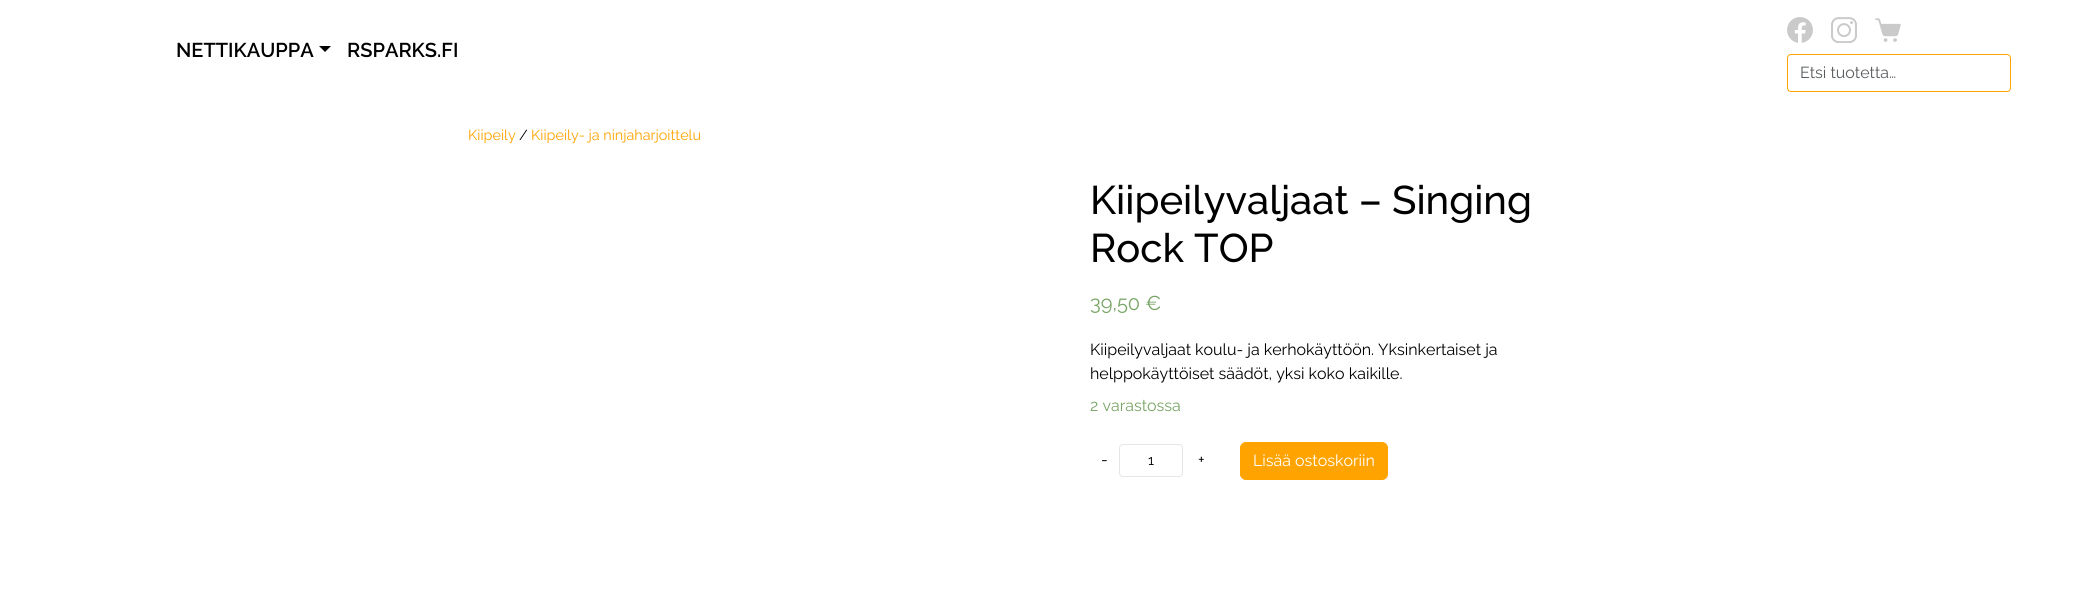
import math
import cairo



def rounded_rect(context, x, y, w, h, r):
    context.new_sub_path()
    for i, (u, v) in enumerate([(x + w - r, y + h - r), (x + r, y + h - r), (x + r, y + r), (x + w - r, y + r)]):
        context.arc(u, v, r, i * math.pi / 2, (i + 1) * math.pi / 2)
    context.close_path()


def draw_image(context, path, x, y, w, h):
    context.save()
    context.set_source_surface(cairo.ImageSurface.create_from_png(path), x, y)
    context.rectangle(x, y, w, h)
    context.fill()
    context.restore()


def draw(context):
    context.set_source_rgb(1, 1, 1)
    context.paint()
    context.set_source_rgb(0, 0, 0)
    context.new_path()
    context.move_to(319, 46)
    context.line_to(331, 46)
    context.line_to(325, 52)
    context.close_path()
    context.fill()
    draw_image(context, "images/1.png", 1787, 17, 26, 26)
    draw_image(context, "images/2.png", 1831, 17, 26, 26)
    draw_image(context, "images/3.png", 1875, 18, 26, 24)
    rounded_rect(context, 1787.5, 54.5, 223, 37, 3.5)
    context.set_source_rgb(1, 163 / 255, 0)
    context.set_line_width(1)
    context.stroke()
    rounded_rect(context, 1119.5, 444.5, 63, 32, 3.5)
    context.set_source_rgb(230 / 255, 230 / 255, 230 / 255)
    context.stroke()
    context.set_source_rgb(1, 163 / 255, 0)
    rounded_rect(context, 1240.5, 442.5, 147, 37, 5.5)
    context.fill_preserve()
    context.stroke()
    context.select_font_face("Raleway SemiBold")
    context.set_font_size(20)
    context.set_source_rgb(0, 0, 0)
    context.move_to(176, 57)
    context.show_text("NETTIKAUPPA")
    context.move_to(347, 57)
    context.show_text("RSPARKS.FI")
    context.select_font_face("Raleway")
    context.set_font_size(16)
    context.set_source_rgb(89 / 255, 92 / 255, 95 / 255)
    context.move_to(1800, 78)
    context.show_text("Etsi tuotetta…")
    context.set_font_size(14.4)
    context.set_source_rgb(1, 163 / 255, 0)
    context.move_to(468, 140)
    context.show_text("Kiipeily")
    context.set_source_rgb(0, 0, 0)
    context.move_to(519, 140)
    context.show_text("/")
    context.set_source_rgb(1, 163 / 255, 0)
    context.move_to(531, 140)
    context.show_text("Kiipeily- ja ninjaharjoittelu")
    context.select_font_face("Raleway Medium")
    context.set_font_size(40)
    context.set_source_rgb(0, 0, 0)
    context.move_to(1090, 214)
    context.show_text("Kiipeilyvaljaat – Singing")
    context.move_to(1090, 262)
    context.show_text("Rock TOP")
    context.select_font_face("Raleway")
    context.set_font_size(20)
    context.set_source_rgb(119 / 255, 164 / 255, 100 / 255)
    context.move_to(1090, 310)
    context.show_text("39,50 €")
    context.set_font_size(16)
    context.set_source_rgb(0, 0, 0)
    context.move_to(1090, 355)
    context.show_text("Kiipeilyvaljaat koulu- ja kerhokäyttöön. Yksinkertaiset ja")
    context.move_to(1090, 379)
    context.show_text("helppokäyttöiset säädöt, yksi koko kaikille.")
    context.set_source_rgb(119 / 255, 164 / 255, 100 / 255)
    context.move_to(1090, 411)
    context.show_text("2 varastossa")
    context.set_source_rgb(0, 0, 0)
    context.move_to(1101, 465)
    context.show_text("-")
    context.set_font_size(14)
    context.move_to(1148, 465)
    context.show_text("1")
    context.set_font_size(16)
    context.move_to(1198, 465)
    context.show_text("+")
    context.set_source_rgb(1, 1, 1)
    context.move_to(1253, 466)
    context.show_text("Lisää ostoskoriin")


surface = cairo.ImageSurface(cairo.Format.RGB24, 2075, 610)
context = cairo.Context(surface)
options = cairo.FontOptions()
options.set_hint_metrics(cairo.HintMetrics.OFF)
options.set_hint_style(cairo.HintStyle.NONE)
context.set_font_options(options)
context.set_miter_limit(4)
draw(context)
surface.write_to_png("out.png")
